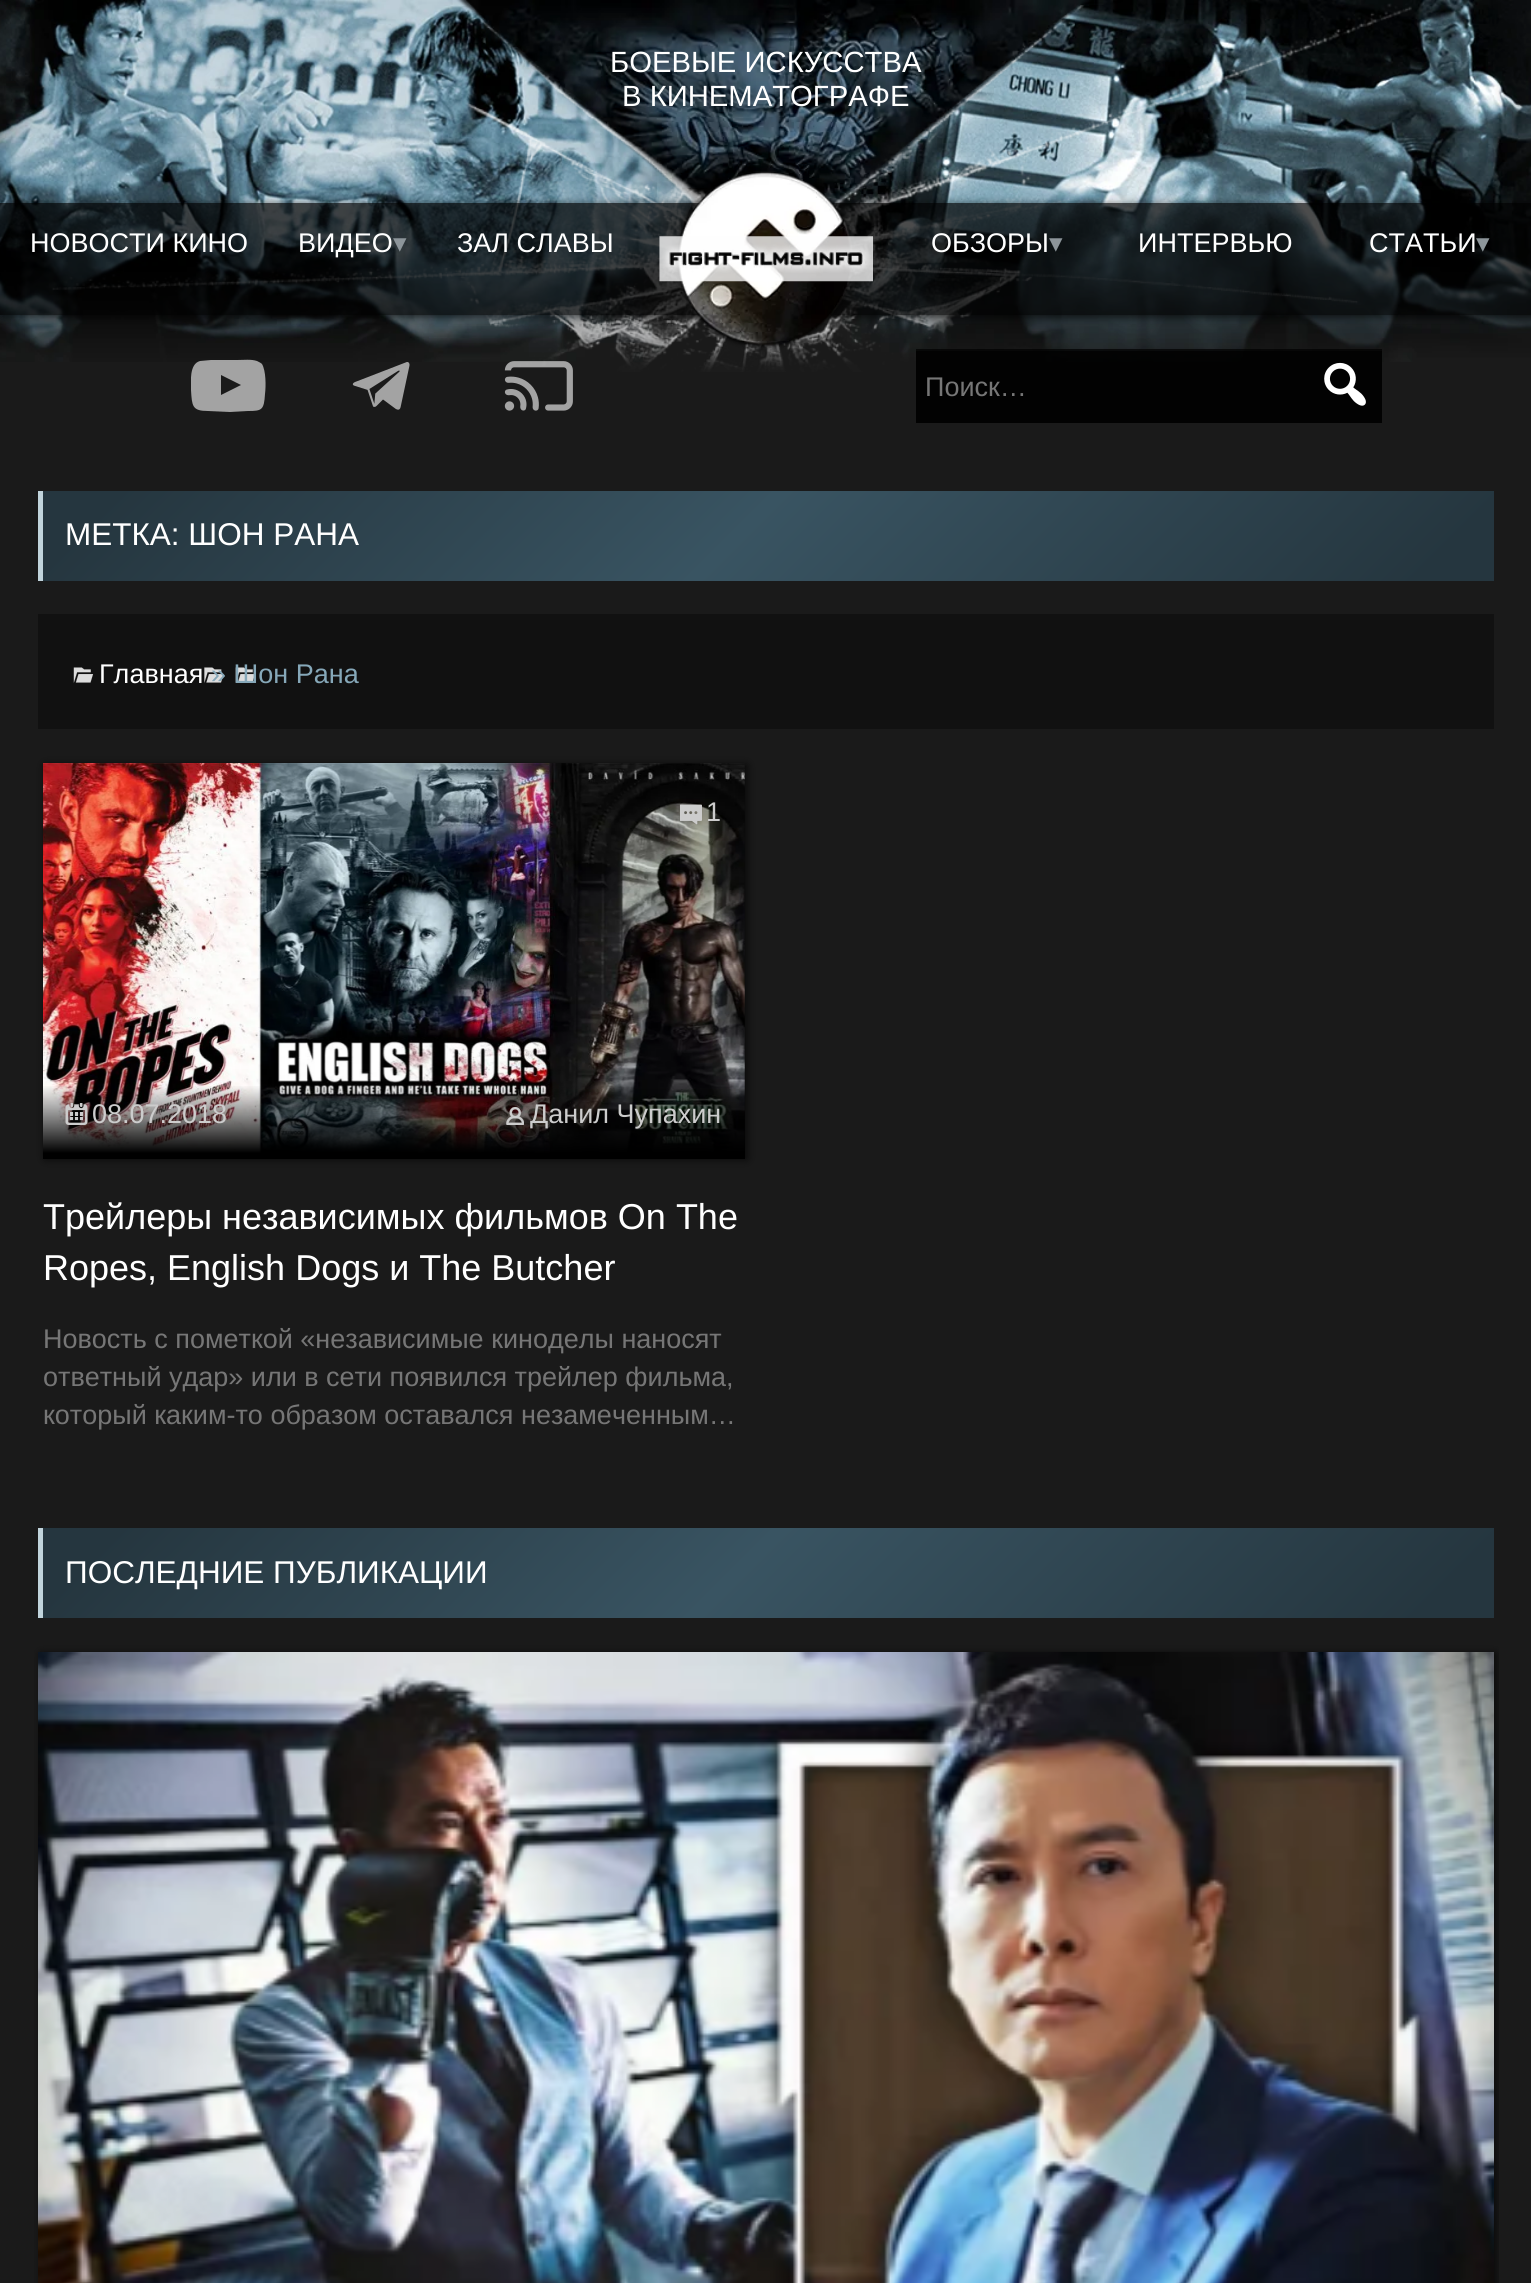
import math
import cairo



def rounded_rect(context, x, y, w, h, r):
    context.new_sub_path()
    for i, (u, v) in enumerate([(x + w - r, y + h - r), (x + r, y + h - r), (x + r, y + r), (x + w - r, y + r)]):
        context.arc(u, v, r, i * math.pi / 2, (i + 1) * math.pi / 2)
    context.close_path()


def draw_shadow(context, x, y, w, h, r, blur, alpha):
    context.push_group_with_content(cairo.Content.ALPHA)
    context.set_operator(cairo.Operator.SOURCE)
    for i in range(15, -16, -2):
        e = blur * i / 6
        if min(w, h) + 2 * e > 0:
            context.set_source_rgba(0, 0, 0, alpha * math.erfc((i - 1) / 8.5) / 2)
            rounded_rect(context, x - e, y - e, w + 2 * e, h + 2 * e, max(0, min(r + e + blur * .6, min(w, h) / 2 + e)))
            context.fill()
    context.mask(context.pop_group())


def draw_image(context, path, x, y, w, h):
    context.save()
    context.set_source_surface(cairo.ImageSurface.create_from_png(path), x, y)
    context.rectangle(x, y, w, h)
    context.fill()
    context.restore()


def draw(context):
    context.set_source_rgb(26 / 255, 26 / 255, 26 / 255)
    context.paint()
    draw_image(context, "images/1.png", 0, 0, 1531, 362)
    draw_image(context, "images/2.png", 52, 0, 1360, 372)
    context.save()
    context.set_fill_rule(cairo.FillRule.EVEN_ODD)
    context.new_path()
    context.move_to(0, 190)
    context.line_to(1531, 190)
    context.line_to(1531, 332)
    context.line_to(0, 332)
    context.close_path()
    context.move_to(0, 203)
    context.line_to(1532, 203)
    context.line_to(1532, 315)
    context.line_to(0, 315)
    context.close_path()
    context.clip()
    context.set_source_rgb(0, 0, 0)
    draw_shadow(context, 2, 205, 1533, 112, 0, 4.5, 0.75)
    context.restore()
    context.set_source_rgba(0, 0, 0, 0.7)
    context.rectangle(0, 203, 1531, 112)
    context.fill()
    draw_image(context, "images/3.png", 674, 171, 180, 179)
    draw_image(context, "images/4.png", 659, 236, 214, 46)
    context.save()
    context.rectangle(191, 349, 75, 74)
    context.clip()
    context.set_source_rgba(1, 1, 1, 0.6)
    context.set_fill_rule(cairo.FillRule.EVEN_ODD)
    context.new_path()
    context.move_to(221, 395)
    context.line_to(221, 375)
    context.line_to(241, 385)
    context.line_to(221, 395)
    context.move_to(262, 364)
    context.curve_to(261, 363, 259, 362, 257, 361)
    context.curve_to(251, 359, 244, 360, 237, 360)
    context.line_to(211, 360)
    context.line_to(200, 361)
    context.curve_to(189, 364, 191, 382, 191, 390)
    context.curve_to(192, 406, 192, 411, 208, 411)
    context.line_to(230, 412)
    context.line_to(248, 411)
    context.curve_to(262, 411, 264, 410, 265, 394)
    context.curve_to(266, 386, 266, 371, 262, 364)
    context.fill()
    context.restore()
    draw_image(context, "images/5.png", 352, 362, 58, 48)
    draw_image(context, "images/6.png", 504, 361, 69, 50)
    context.rectangle(916, 349, 466, 74)
    context.fill()
    context.rectangle(916, 351, 466, 72)
    context.fill()
    draw_image(context, "images/7.png", 1324, 362, 42, 44)
    gradient = cairo.LinearGradient(383, 150, 1154, 921)
    gradient.add_color_stop_rgba(0.05, 37 / 255, 54 / 255, 63 / 255, 1)
    gradient.add_color_stop_rgba(0.48, 57 / 255, 84 / 255, 98 / 255, 1)
    gradient.add_color_stop_rgba(0.95, 37 / 255, 54 / 255, 63 / 255, 1)
    context.set_source(gradient)
    context.rectangle(43, 491, 1451, 90)
    context.fill()
    context.set_source_rgb(193 / 255, 212 / 255, 220 / 255)
    context.rectangle(38, 491, 5, 90)
    context.fill()
    context.set_source_rgb(17 / 255, 17 / 255, 17 / 255)
    context.rectangle(38, 614, 1456, 115)
    context.fill()
    draw_image(context, "images/8.png", 73, 667, 183, 16)
    context.set_source_rgb(0, 0, 0)
    draw_shadow(context, 45, 765, 702, 394, 0, 4.5, 0.75)
    draw_image(context, "images/9.png", 43, 763, 702, 390)
    draw_image(context, "images/10.png", 680, 804, 22, 21)
    gradient = cairo.LinearGradient(394, 1159, 394, 1085)
    gradient.add_color_stop_rgba(0.08, 0, 0, 0, 1)
    gradient.add_color_stop_rgba(1, 0, 0, 0, 0)
    context.set_source(gradient)
    context.rectangle(43, 1086, 702, 73)
    context.fill()
    draw_image(context, "images/11.png", 65, 1103, 23, 22)
    draw_image(context, "images/12.png", 506, 1107, 18, 18)
    gradient = cairo.LinearGradient(383, 1187, 1154, 1958)
    gradient.add_color_stop_rgba(0.05, 37 / 255, 54 / 255, 63 / 255, 1)
    gradient.add_color_stop_rgba(0.48, 57 / 255, 84 / 255, 98 / 255, 1)
    gradient.add_color_stop_rgba(0.95, 37 / 255, 54 / 255, 63 / 255, 1)
    context.set_source(gradient)
    context.rectangle(43, 1528, 1451, 90)
    context.fill()
    context.set_source_rgb(193 / 255, 212 / 255, 220 / 255)
    context.rectangle(38, 1528, 5, 90)
    context.fill()
    context.save()
    context.rectangle(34, 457, 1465, 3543)
    context.clip()
    context.set_fill_rule(cairo.FillRule.EVEN_ODD)
    context.new_path()
    context.move_to(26, 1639)
    context.line_to(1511, 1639)
    context.line_to(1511, 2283)
    context.line_to(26, 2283)
    context.close_path()
    context.move_to(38, 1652)
    context.line_to(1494, 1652)
    context.line_to(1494, 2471)
    context.line_to(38, 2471)
    context.close_path()
    context.clip()
    context.set_source_rgb(0, 0, 0)
    draw_shadow(context, 41, 1654, 1455, 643, 0, 4.5, 0.75)
    context.restore()
    draw_image(context, "images/13.png", 38, 1652, 1456, 631)
    context.select_font_face("Arimo")
    context.set_font_size(29.25)
    context.set_source_rgb(1, 1, 1)
    context.move_to(610, 72)
    context.show_text("БОЕВЫЕ ИСКУССТВА")
    context.move_to(622, 106)
    context.show_text("В КИНЕМАТОГРАФЕ")
    context.set_font_size(27)
    context.move_to(30, 252)
    context.show_text("НОВОСТИ КИНО")
    context.move_to(298, 252)
    context.show_text("ВИДЕО")
    context.select_font_face("DejaVu Sans")
    context.set_source_rgb(141 / 255, 149 / 255, 154 / 255)
    context.move_to(393, 252)
    context.show_text("▾")
    context.select_font_face("Arimo")
    context.set_source_rgb(1, 1, 1)
    context.move_to(457, 252)
    context.show_text("ЗАЛ СЛАВЫ")
    context.move_to(931, 252)
    context.show_text("ОБЗОРЫ")
    context.select_font_face("DejaVu Sans")
    context.set_source_rgb(141 / 255, 149 / 255, 154 / 255)
    context.move_to(1049, 252)
    context.show_text("▾")
    context.select_font_face("Arimo")
    context.set_source_rgb(1, 1, 1)
    context.move_to(1138, 252)
    context.show_text("ИНТЕРВЬЮ")
    context.move_to(1369, 252)
    context.show_text("СТАТЬИ")
    context.select_font_face("DejaVu Sans")
    context.set_source_rgb(141 / 255, 149 / 255, 154 / 255)
    context.move_to(1476, 252)
    context.show_text("▾")
    context.select_font_face("Arimo")
    context.set_source_rgb(118 / 255, 118 / 255, 118 / 255)
    context.move_to(925, 396)
    context.show_text("Поиск…")
    context.set_font_size(31.5)
    context.set_source_rgb(1, 1, 1)
    context.move_to(65, 545)
    context.show_text("МЕТКА: ШОН РАНА")
    context.set_font_size(27)
    context.move_to(99, 683)
    context.show_text("Главная")
    context.set_source_rgb(134 / 255, 168 / 255, 185 / 255)
    context.move_to(211, 683)
    context.show_text("» Шон Рана")
    context.set_source_rgb(204 / 255, 204 / 255, 204 / 255)
    context.move_to(706, 821)
    context.show_text("1")
    context.move_to(92, 1123)
    context.show_text("08.07.2018")
    context.move_to(530, 1123)
    context.show_text("Данил Чупахин")
    context.set_font_size(36)
    context.set_source_rgb(1, 1, 1)
    context.move_to(43, 1229)
    context.show_text("Трейлеры независимых фильмов On The")
    context.move_to(43, 1280)
    context.show_text("Ropes, English Dogs и The Butcher")
    context.set_font_size(27)
    context.set_source_rgb(118 / 255, 118 / 255, 118 / 255)
    context.move_to(43, 1348)
    context.show_text("Новость с пометкой «независимые киноделы наносят")
    context.move_to(43, 1386)
    context.show_text("ответный удар» или в сети появился трейлер фильма,")
    context.move_to(43, 1424)
    context.show_text("который каким-то образом оставался незамеченным…")
    context.set_font_size(31.5)
    context.set_source_rgb(1, 1, 1)
    context.move_to(65, 1583)
    context.show_text("ПОСЛЕДНИЕ ПУБЛИКАЦИИ")


surface = cairo.ImageSurface(cairo.Format.RGB24, 1531, 2283)
context = cairo.Context(surface)
options = cairo.FontOptions()
options.set_hint_metrics(cairo.HintMetrics.OFF)
options.set_hint_style(cairo.HintStyle.NONE)
context.set_font_options(options)
context.set_miter_limit(4)
draw(context)
surface.write_to_png("out.png")
